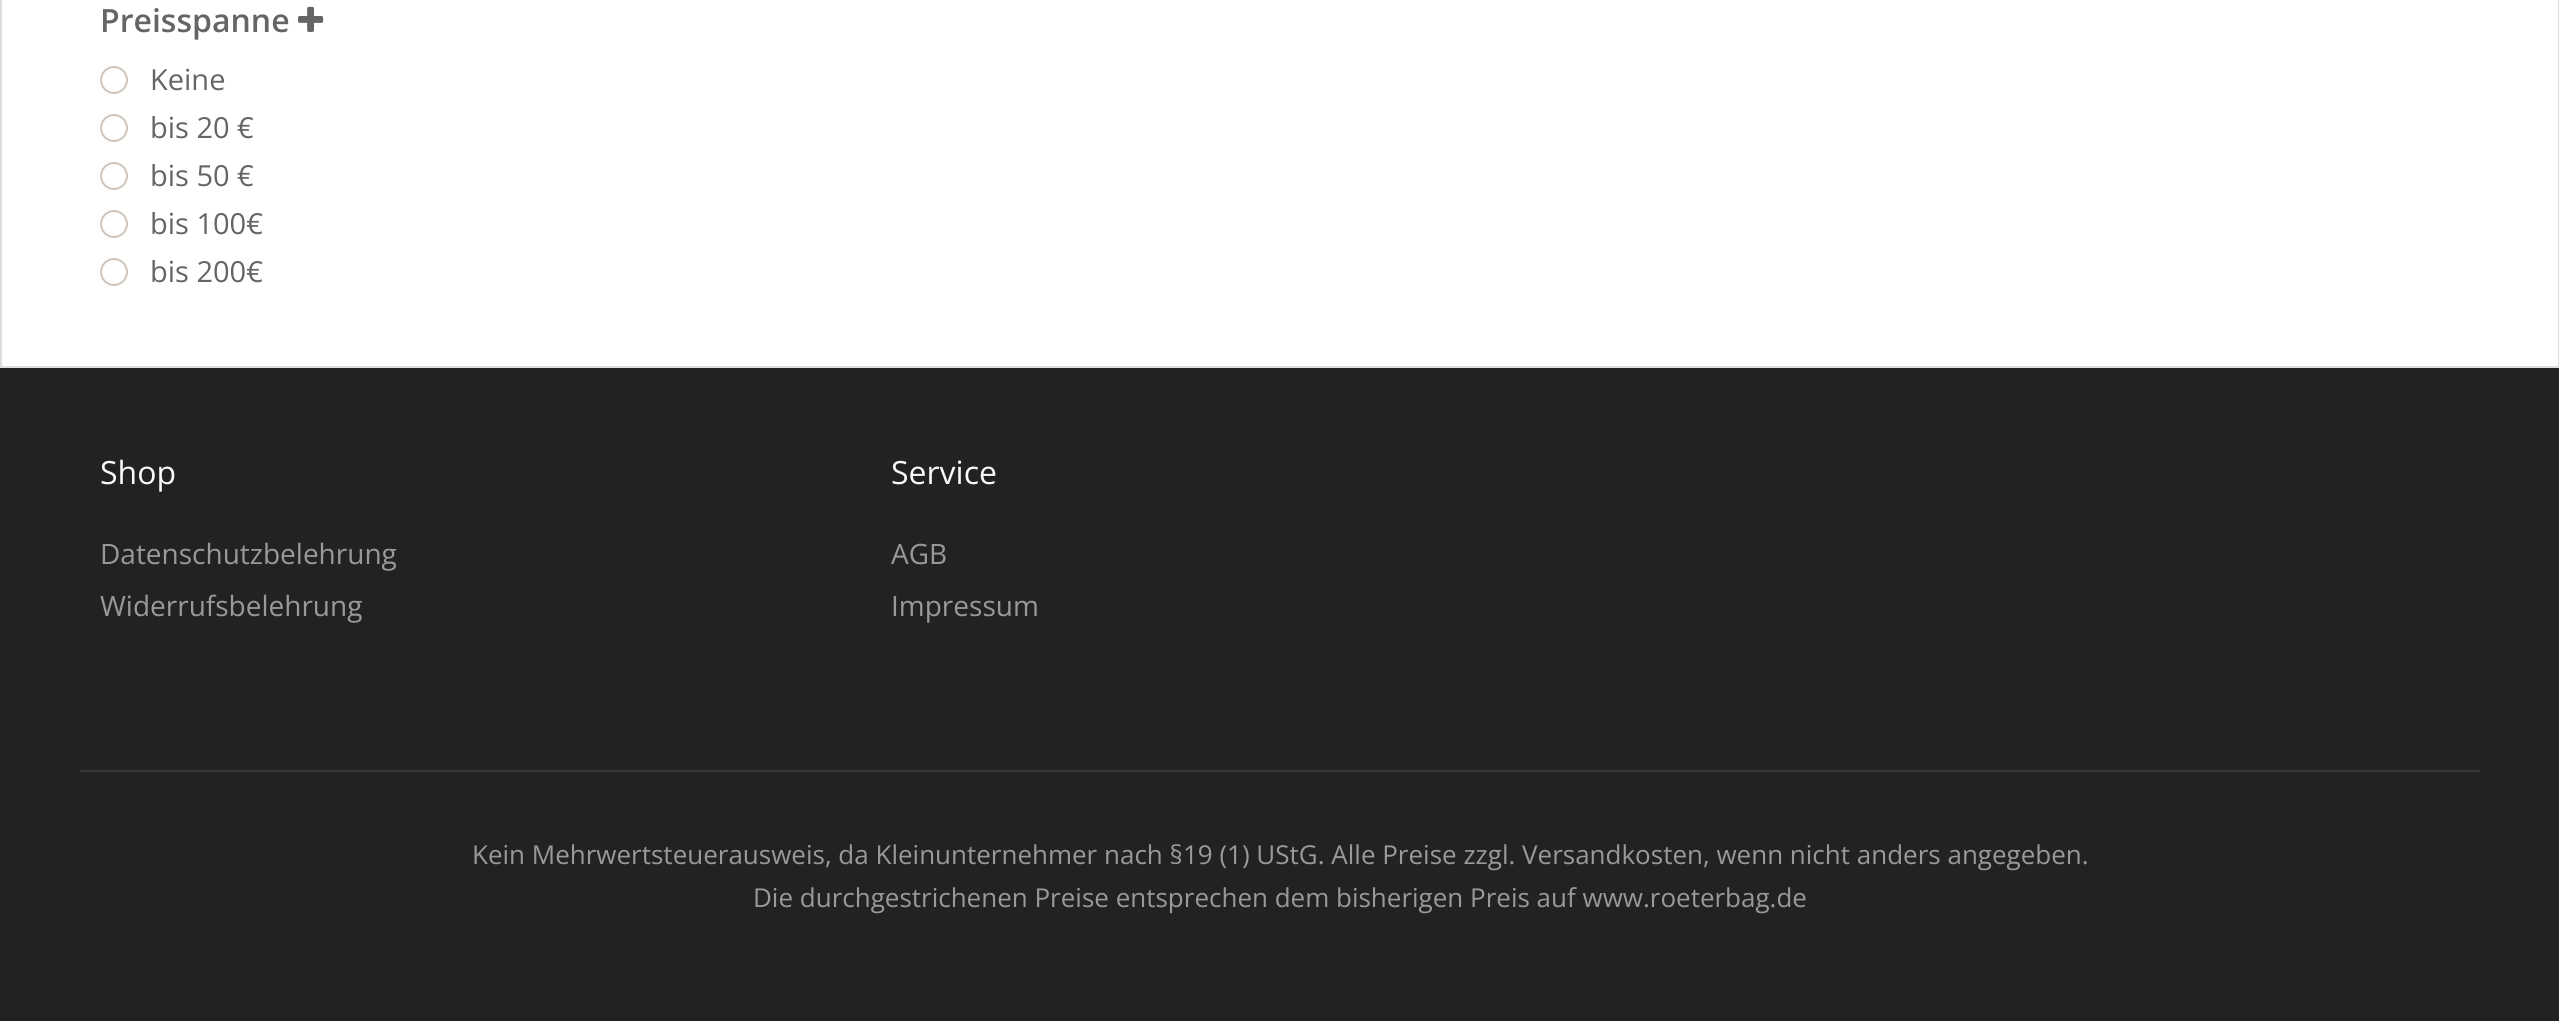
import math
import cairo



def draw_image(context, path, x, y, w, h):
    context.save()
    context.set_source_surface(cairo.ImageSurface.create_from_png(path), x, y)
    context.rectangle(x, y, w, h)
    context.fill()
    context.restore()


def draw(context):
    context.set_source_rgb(34 / 255, 34 / 255, 34 / 255)
    context.paint()
    context.set_source_rgb(1, 1, 1)
    context.rectangle(2, 0, 2556, 366)
    context.fill()
    context.set_source_rgb(222 / 255, 222 / 255, 222 / 255)
    context.rectangle(2558, 0, 1, 368)
    context.fill()
    context.rectangle(0, 366, 2559, 2)
    context.fill()
    context.rectangle(0, 0, 2, 368)
    context.fill()
    draw_image(context, "images/1.png", 298, 6, 26, 26)
    context.arc(114, 80, 13, 0, 2 * math.pi)
    context.set_source_rgb(206 / 255, 196 / 255, 187 / 255)
    context.stroke()
    context.arc(114, 128, 13, 0, 2 * math.pi)
    context.stroke()
    context.arc(114, 176, 13, 0, 2 * math.pi)
    context.stroke()
    context.arc(114, 224, 13, 0, 2 * math.pi)
    context.stroke()
    context.arc(114, 272, 13, 0, 2 * math.pi)
    context.stroke()
    context.set_source_rgb(52 / 255, 56 / 255, 60 / 255)
    context.rectangle(80, 770, 2400, 2)
    context.fill()
    context.select_font_face("Open Sans SemiBold")
    context.set_font_size(32)
    context.set_source_rgb(101 / 255, 101 / 255, 101 / 255)
    context.move_to(100, 32)
    context.show_text("Preisspanne")
    context.select_font_face("Open Sans")
    context.set_font_size(29)
    context.move_to(150, 90)
    context.show_text("Keine")
    context.move_to(150, 138)
    context.show_text("bis 20 €")
    context.move_to(150, 186)
    context.show_text("bis 50 €")
    context.move_to(150, 234)
    context.show_text("bis 100€")
    context.move_to(150, 282)
    context.show_text("bis 200€")
    context.set_font_size(32)
    context.set_source_rgb(248 / 255, 249 / 255, 250 / 255)
    context.move_to(100, 484)
    context.show_text("Shop")
    context.set_font_size(28)
    context.set_source_rgb(153 / 255, 153 / 255, 153 / 255)
    context.move_to(100, 564)
    context.show_text("Datenschutzbelehrung")
    context.move_to(100, 616)
    context.show_text("Widerrufsbelehrung")
    context.set_font_size(32)
    context.set_source_rgb(248 / 255, 249 / 255, 250 / 255)
    context.move_to(891, 484)
    context.show_text("Service")
    context.set_font_size(28)
    context.set_source_rgb(153 / 255, 153 / 255, 153 / 255)
    context.move_to(891, 564)
    context.show_text("AGB")
    context.move_to(891, 616)
    context.show_text("Impressum")
    context.set_font_size(26)
    context.move_to(472, 864)
    context.show_text("Kein Mehrwertsteuerausweis, da Kleinunternehmer nach §19 (1) UStG. Alle Preise zzgl. Versandkosten, wenn nicht anders angegeben.")
    context.move_to(753, 907)
    context.show_text("Die durchgestrichenen Preise entsprechen dem bisherigen Preis auf www.roeterbag.de")


surface = cairo.ImageSurface(cairo.Format.RGB24, 2559, 1021)
context = cairo.Context(surface)
options = cairo.FontOptions()
options.set_hint_metrics(cairo.HintMetrics.OFF)
options.set_hint_style(cairo.HintStyle.NONE)
context.set_font_options(options)
context.set_miter_limit(4)
draw(context)
surface.write_to_png("out.png")
